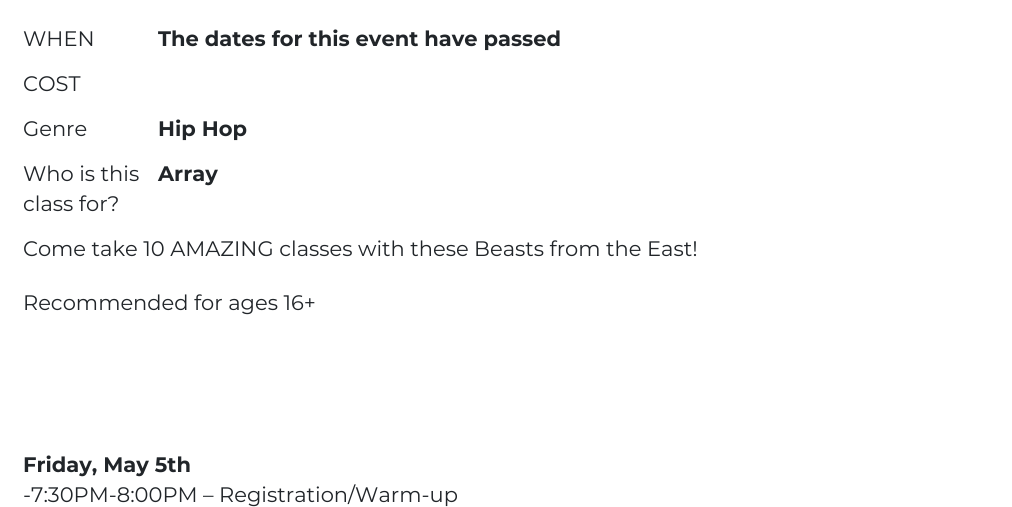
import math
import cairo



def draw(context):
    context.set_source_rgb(1, 1, 1)
    context.paint()
    context.select_font_face("Montserrat")
    context.set_font_size(21)
    context.set_source_rgb(33 / 255, 37 / 255, 41 / 255)
    context.move_to(23, 46)
    context.show_text("WHEN")
    context.select_font_face("Montserrat", cairo.FontSlant.NORMAL, cairo.FontWeight.BOLD)
    context.move_to(158, 46)
    context.show_text("The dates for this event have passed")
    context.select_font_face("Montserrat")
    context.move_to(23, 91)
    context.show_text("COST")
    context.move_to(23, 136)
    context.show_text("Genre")
    context.select_font_face("Montserrat", cairo.FontSlant.NORMAL, cairo.FontWeight.BOLD)
    context.move_to(158, 136)
    context.show_text("Hip Hop")
    context.select_font_face("Montserrat")
    context.move_to(23, 181)
    context.show_text("Who is this")
    context.move_to(23, 211)
    context.show_text("class for?")
    context.select_font_face("Montserrat", cairo.FontSlant.NORMAL, cairo.FontWeight.BOLD)
    context.move_to(158, 181)
    context.show_text("Array")
    context.select_font_face("Montserrat")
    context.move_to(23, 256)
    context.show_text("Come take 10 AMAZING classes with these Beasts from the East!")
    context.move_to(23, 310)
    context.show_text("Recommended for ages 16+")
    context.select_font_face("Montserrat", cairo.FontSlant.NORMAL, cairo.FontWeight.BOLD)
    context.move_to(23, 472)
    context.show_text("Friday, May 5th")
    context.select_font_face("Montserrat")
    context.move_to(23, 502)
    context.show_text("-7:30PM-8:00PM – Registration/Warm-up")


surface = cairo.ImageSurface(cairo.Format.RGB24, 1012, 507)
context = cairo.Context(surface)
options = cairo.FontOptions()
options.set_hint_metrics(cairo.HintMetrics.OFF)
options.set_hint_style(cairo.HintStyle.NONE)
context.set_font_options(options)
context.set_miter_limit(4)
draw(context)
surface.write_to_png("out.png")
